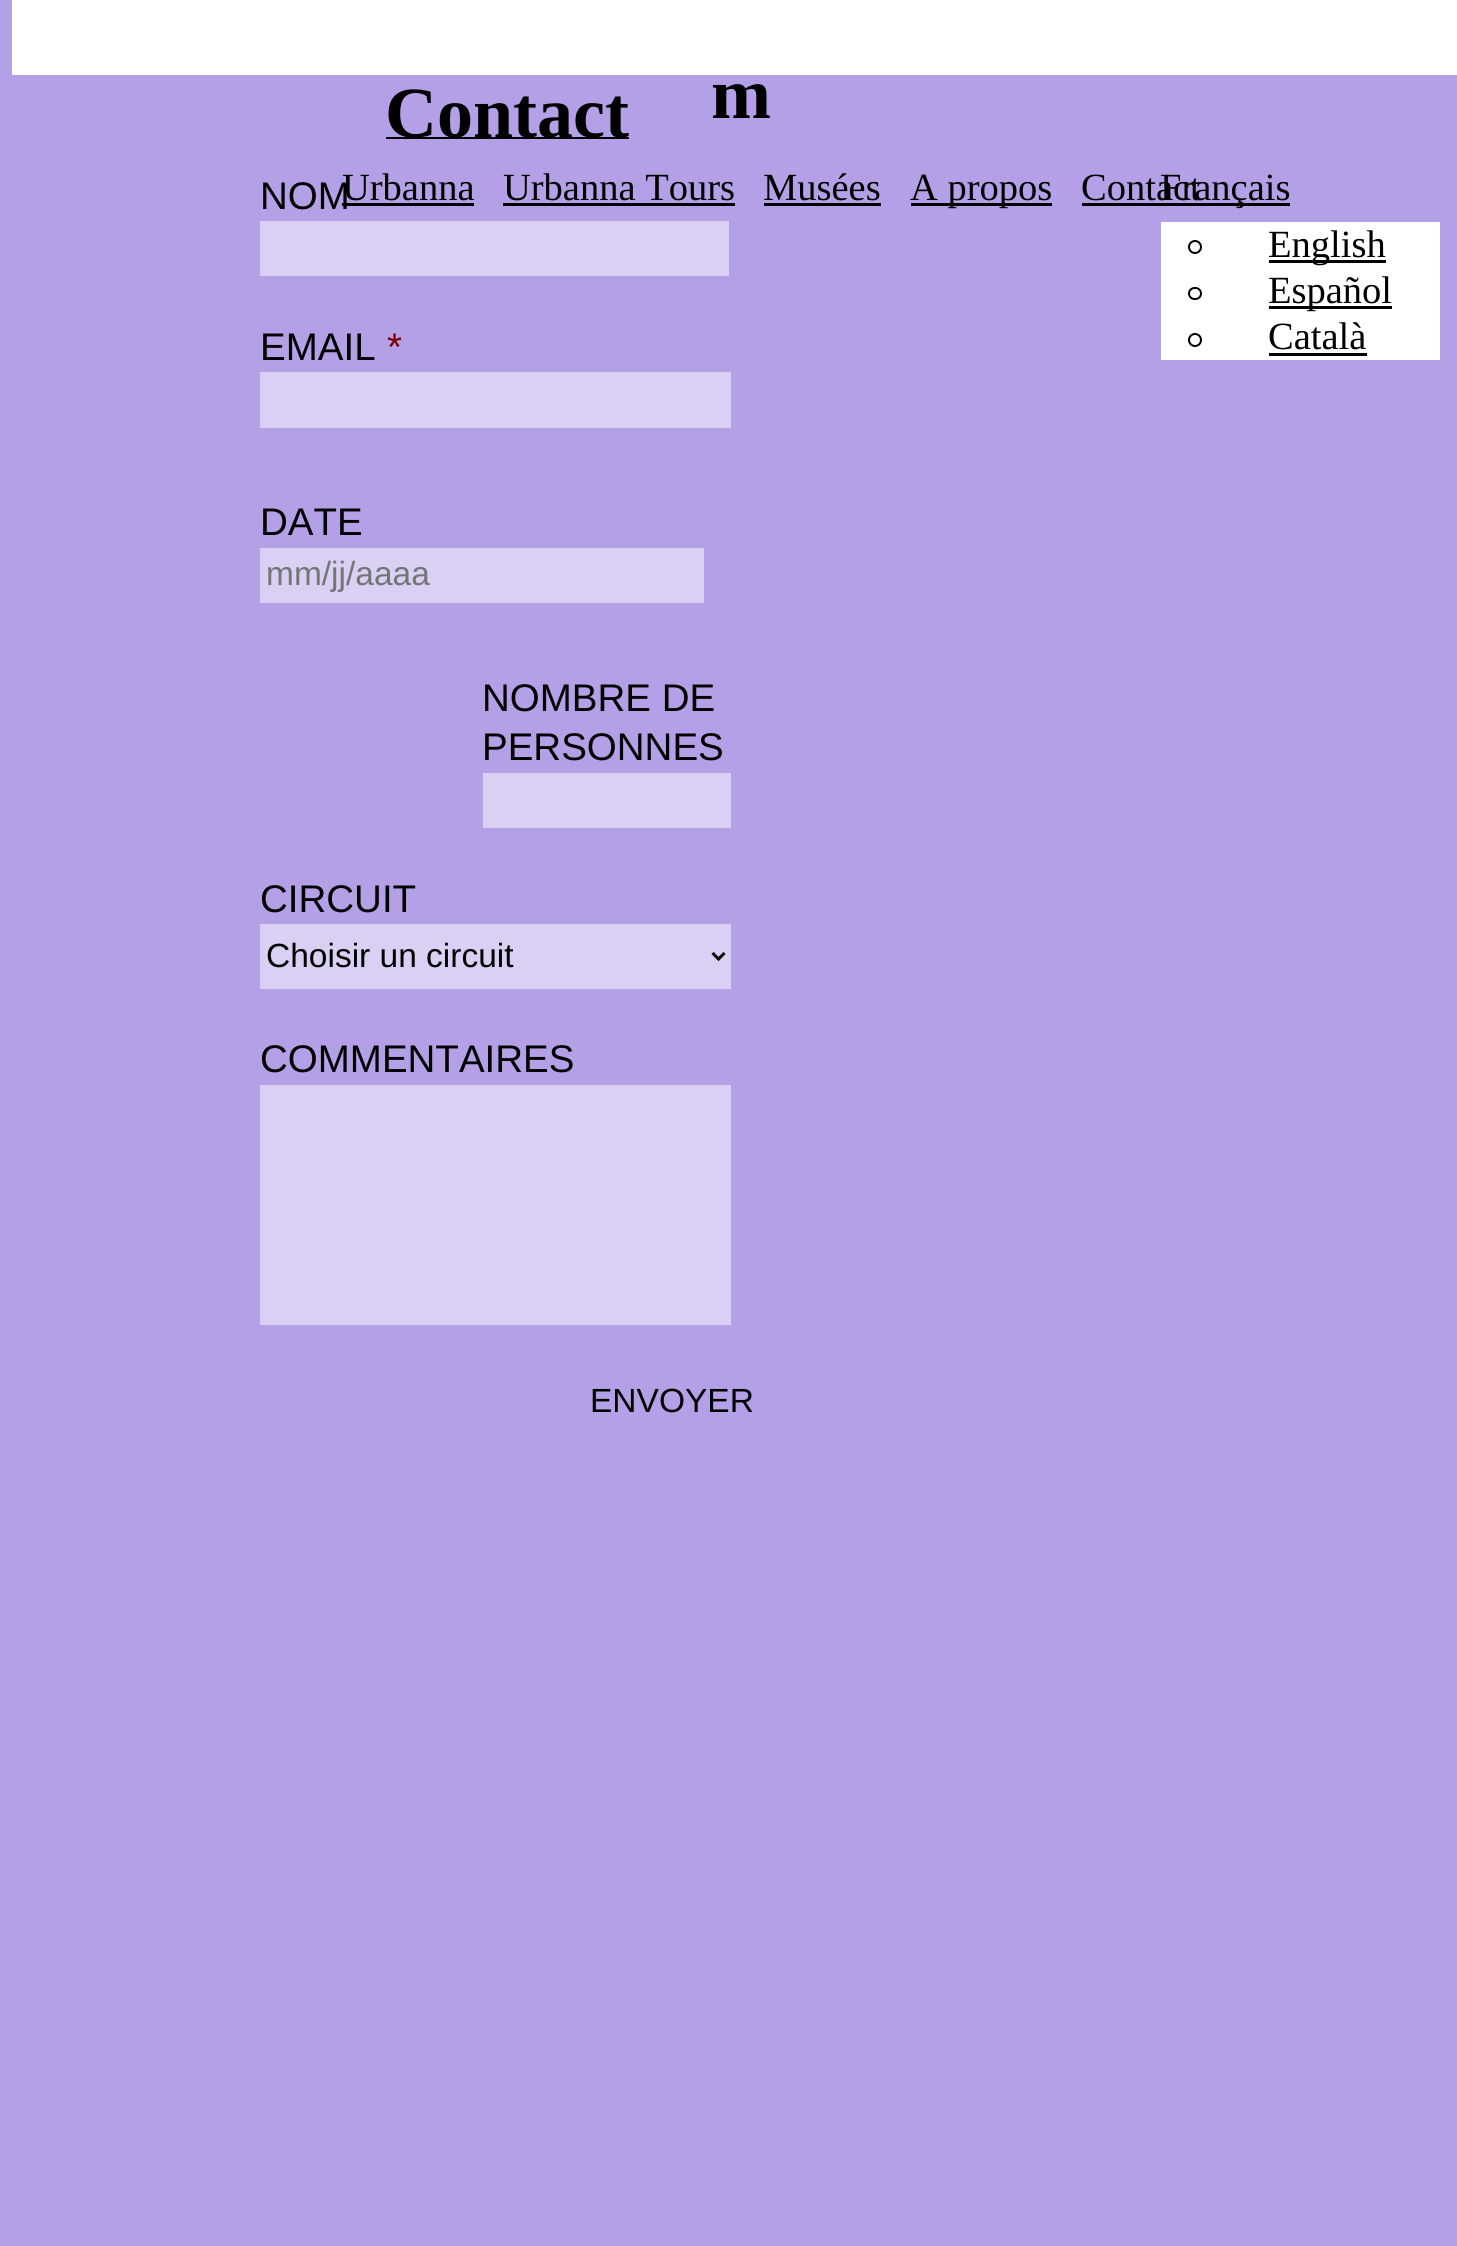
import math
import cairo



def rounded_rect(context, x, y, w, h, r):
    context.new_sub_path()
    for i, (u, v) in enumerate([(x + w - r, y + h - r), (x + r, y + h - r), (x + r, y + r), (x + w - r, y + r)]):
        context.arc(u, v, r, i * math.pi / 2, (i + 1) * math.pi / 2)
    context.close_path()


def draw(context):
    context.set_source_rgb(180 / 255, 160 / 255, 231 / 255)
    context.paint()
    context.set_source_rgb(1, 1, 1)
    context.rectangle(12, 0, 1445, 75)
    context.fill()
    context.set_source_rgb(0, 0, 0)
    context.rectangle(342, 203, 132, 3)
    context.fill()
    context.rectangle(503, 203, 232, 3)
    context.fill()
    context.rectangle(764, 203, 117, 3)
    context.fill()
    context.rectangle(911, 203, 141, 3)
    context.fill()
    context.rectangle(1082, 203, 208, 3)
    context.fill()
    context.set_source_rgb(1, 1, 1)
    context.rectangle(1161, 222, 279, 138)
    context.fill()
    context.arc(1195, 247, 6, 0, 2 * math.pi)
    context.set_source_rgb(0, 0, 0)
    context.stroke()
    context.rectangle(1269, 260, 117, 3)
    context.fill()
    rounded_rect(context, 1189, 288, 12, 11, 5.5)
    context.stroke()
    context.rectangle(1269, 306, 123, 3)
    context.fill()
    context.arc(1195, 340, 6, 0, 2 * math.pi)
    context.stroke()
    context.rectangle(1269, 353, 98, 3)
    context.fill()
    context.rectangle(386, 137, 243, 2)
    context.fill()
    context.set_source_rgb(218 / 255, 208 / 255, 243 / 255)
    context.rectangle(260, 221, 469, 55)
    context.fill()
    context.rectangle(260, 372, 471, 56)
    context.fill()
    context.rectangle(260, 548, 444, 55)
    context.fill()
    context.rectangle(483, 773, 248, 55)
    context.fill()
    context.rectangle(260, 924, 471, 65)
    context.fill()
    context.new_path()
    context.move_to(712.5, 953)
    context.line_to(718.5, 959)
    context.line_to(724.5, 953)
    context.set_source_rgb(0, 0, 0)
    context.set_line_width(3)
    context.stroke()
    context.set_source_rgb(218 / 255, 208 / 255, 243 / 255)
    context.rectangle(260, 1085, 471, 240)
    context.fill()
    context.select_font_face("Liberation Serif", cairo.FontSlant.NORMAL, cairo.FontWeight.BOLD)
    context.set_font_size(72)
    context.set_source_rgb(0, 0, 0)
    context.move_to(711, 118)
    context.show_text("m")
    context.select_font_face("Liberation Serif")
    context.set_font_size(38.5)
    context.move_to(503, 200)
    context.show_text("Urbanna Tours")
    context.move_to(763, 200)
    context.show_text("Musées")
    context.move_to(910, 200)
    context.show_text("A propos")
    context.move_to(1081, 200)
    context.show_text("Contact")
    context.move_to(1160, 200)
    context.show_text("Français")
    context.move_to(1268, 257)
    context.show_text("English")
    context.move_to(1268, 303)
    context.show_text("Español")
    context.move_to(1268, 349)
    context.show_text("Català")
    context.select_font_face("Liberation Serif", cairo.FontSlant.NORMAL, cairo.FontWeight.BOLD)
    context.set_font_size(72)
    context.move_to(385, 137)
    context.show_text("Contact")
    context.select_font_face("Liberation Sans")
    context.set_font_size(38.5)
    context.move_to(260, 209)
    context.show_text("NOM")
    context.select_font_face("Liberation Serif")
    context.move_to(342, 200)
    context.show_text("Urbanna")
    context.select_font_face("Liberation Sans")
    context.move_to(260, 360)
    context.show_text("EMAIL")
    context.set_source_rgb(121 / 255, 0, 0)
    context.move_to(387, 360)
    context.show_text("*")
    context.set_source_rgb(0, 0, 0)
    context.move_to(260, 535)
    context.show_text("DATE")
    context.set_font_size(33.5)
    context.set_source_rgb(117 / 255, 117 / 255, 117 / 255)
    context.move_to(266, 585)
    context.show_text("mm/jj/aaaa")
    context.set_font_size(38.5)
    context.set_source_rgb(0, 0, 0)
    context.move_to(482, 711)
    context.show_text("NOMBRE DE")
    context.move_to(482, 760)
    context.show_text("PERSONNES")
    context.move_to(260, 912)
    context.show_text("CIRCUIT")
    context.set_font_size(33.5)
    context.move_to(266, 967)
    context.show_text("Choisir un circuit")
    context.set_font_size(38.5)
    context.move_to(260, 1072)
    context.show_text("COMMENTAIRES")
    context.set_font_size(33.5)
    context.move_to(590, 1412)
    context.show_text("ENVOYER")


surface = cairo.ImageSurface(cairo.Format.RGB24, 1457, 2246)
context = cairo.Context(surface)
options = cairo.FontOptions()
options.set_hint_metrics(cairo.HintMetrics.OFF)
options.set_hint_style(cairo.HintStyle.NONE)
context.set_font_options(options)
context.set_miter_limit(4)
draw(context)
surface.write_to_png("out.png")
